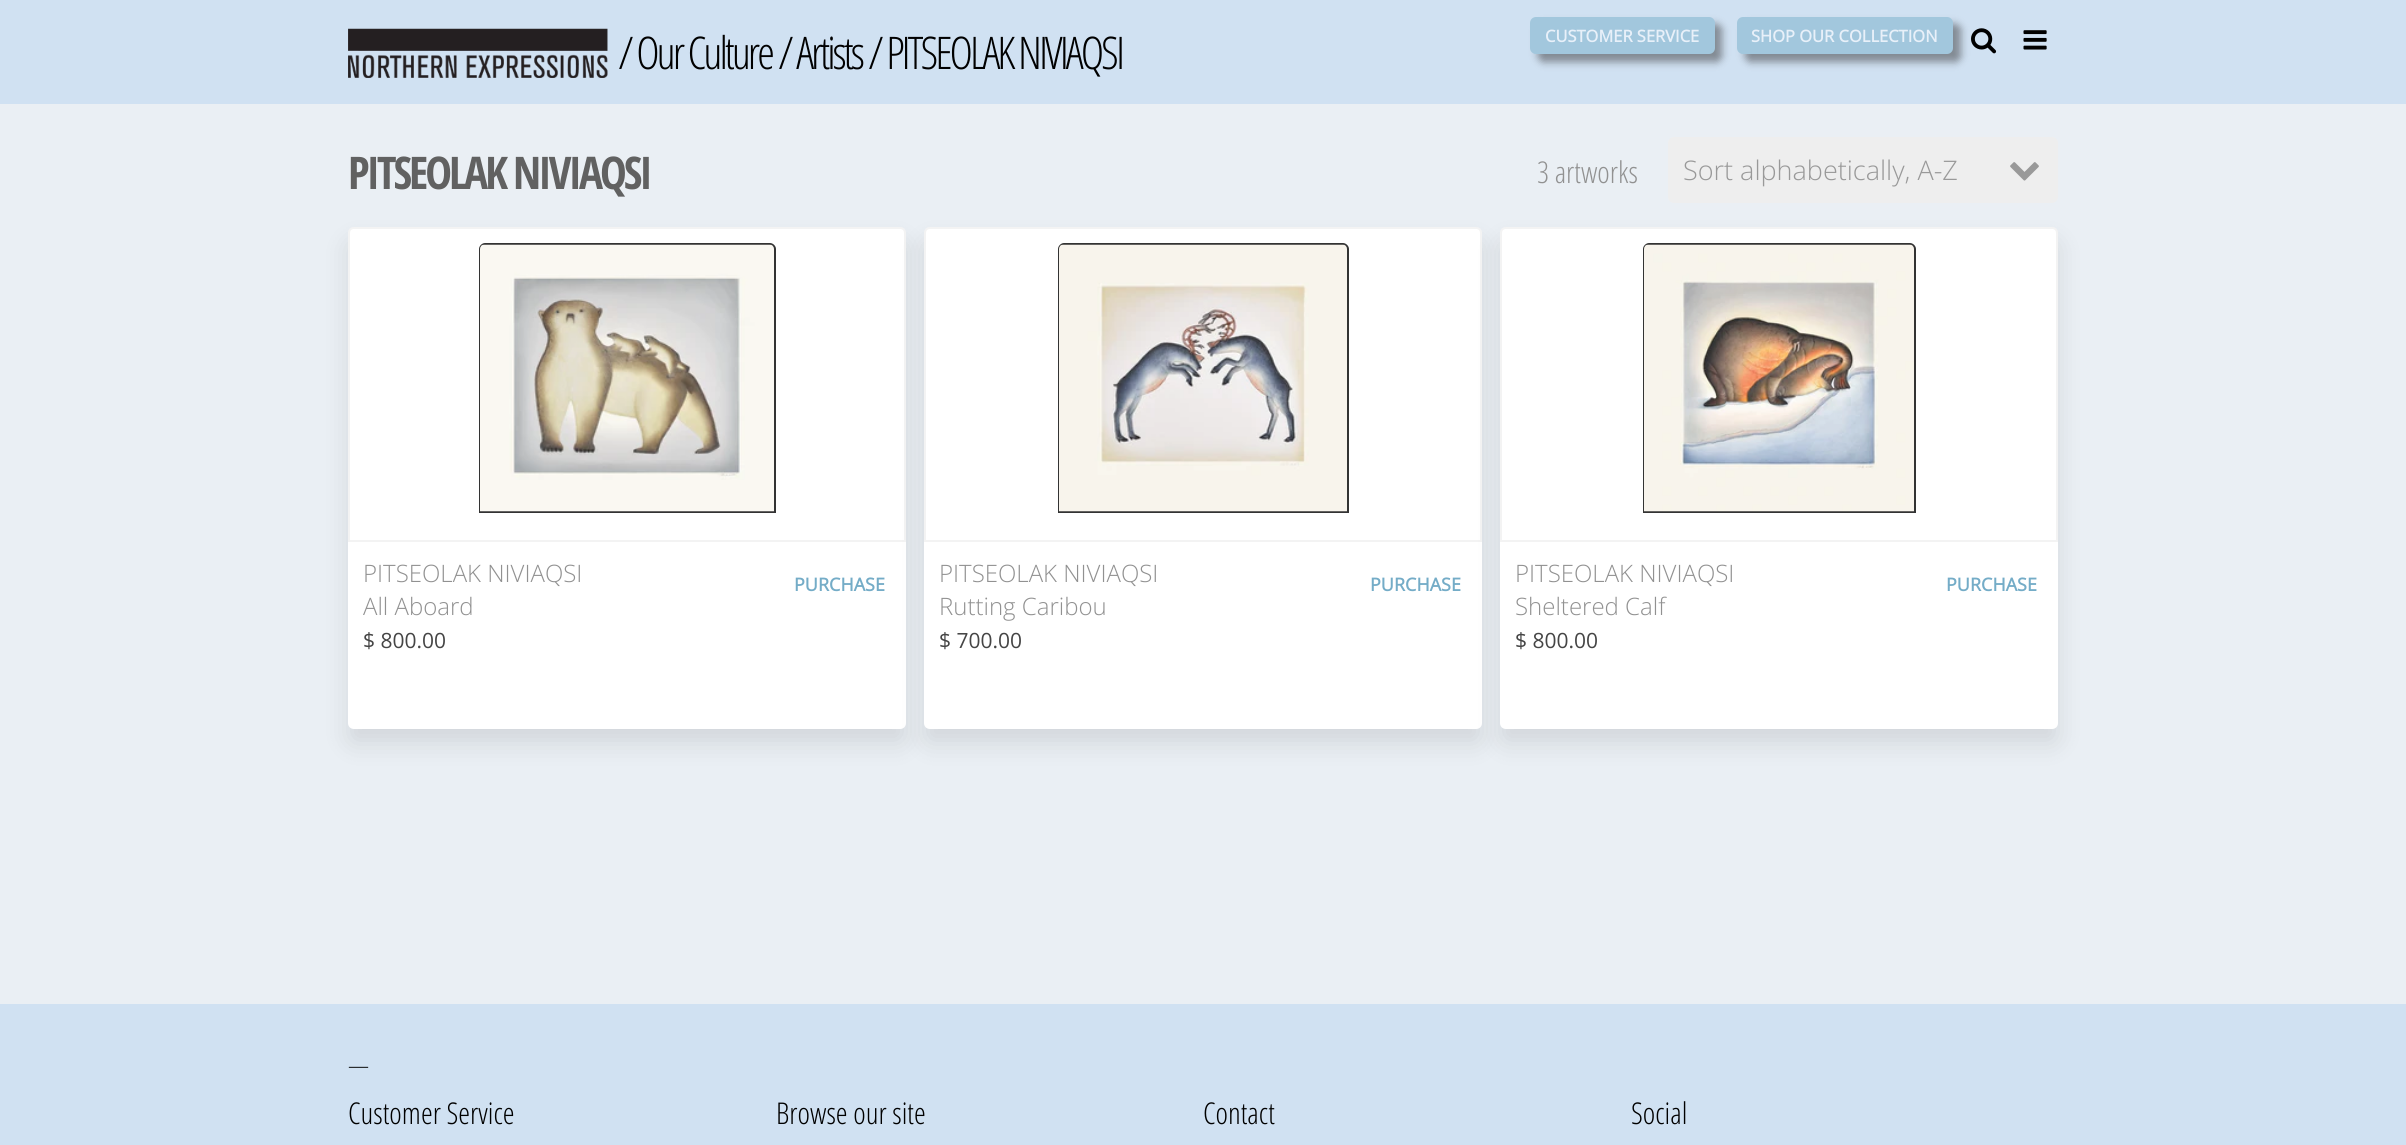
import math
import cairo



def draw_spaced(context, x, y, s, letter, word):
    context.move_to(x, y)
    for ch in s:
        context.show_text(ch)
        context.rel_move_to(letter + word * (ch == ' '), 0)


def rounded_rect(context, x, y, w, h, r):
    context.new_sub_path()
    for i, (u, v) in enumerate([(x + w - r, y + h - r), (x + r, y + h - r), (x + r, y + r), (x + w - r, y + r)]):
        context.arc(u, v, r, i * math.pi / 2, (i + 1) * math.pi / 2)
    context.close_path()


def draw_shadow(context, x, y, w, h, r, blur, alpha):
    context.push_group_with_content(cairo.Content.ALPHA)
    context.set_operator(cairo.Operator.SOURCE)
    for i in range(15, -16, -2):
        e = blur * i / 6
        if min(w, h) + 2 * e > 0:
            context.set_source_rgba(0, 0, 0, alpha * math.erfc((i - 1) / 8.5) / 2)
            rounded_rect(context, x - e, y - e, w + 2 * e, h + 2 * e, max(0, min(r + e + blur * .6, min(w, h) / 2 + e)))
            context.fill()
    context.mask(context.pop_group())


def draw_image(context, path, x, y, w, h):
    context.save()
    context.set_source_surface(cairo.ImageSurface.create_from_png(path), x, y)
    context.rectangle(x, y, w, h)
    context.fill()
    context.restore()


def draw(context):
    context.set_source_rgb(208 / 255, 225 / 255, 242 / 255)
    context.paint()
    draw_image(context, "images/1.png", 348, 28, 260, 50)
    context.set_source_rgb(130 / 255, 138 / 255, 147 / 255)
    draw_shadow(context, 1538, 24, 184, 38, 6, 4, 1)
    context.set_source_rgb(162 / 255, 199 / 255, 221 / 255)
    rounded_rect(context, 1530, 17, 185, 37, 6)
    context.fill()
    draw_image(context, "images/2.png", 1971, 28, 26, 26)
    context.set_source_rgb(130 / 255, 138 / 255, 147 / 255)
    draw_shadow(context, 1745, 24, 216, 38, 6, 4, 1)
    context.set_source_rgb(162 / 255, 199 / 255, 221 / 255)
    rounded_rect(context, 1737, 17, 216, 37, 6)
    context.fill()
    draw_image(context, "images/3.png", 2023, 30, 24, 20)
    context.set_source_rgb(234 / 255, 239 / 255, 244 / 255)
    context.rectangle(0, 104, 2406, 900)
    context.fill()
    context.set_source_rgb(238 / 255, 238 / 255, 238 / 255)
    rounded_rect(context, 1668, 137, 390, 66, 6)
    context.fill()
    draw_image(context, "images/4.png", 2010, 162, 29, 19)
    context.set_source_rgb(0, 0, 0)
    draw_shadow(context, 348, 242, 558, 502, 6, 12, 0.1)
    context.set_source_rgb(1, 1, 1)
    context.new_path()
    context.move_to(354, 228)
    context.line_to(900, 228)
    context.curve_to(903, 228, 905, 230, 905, 233)
    context.line_to(905, 541)
    context.line_to(349, 541)
    context.line_to(349, 233)
    context.curve_to(349, 230, 351, 228, 354, 228)
    context.close_path()
    context.fill_preserve()
    context.set_source_rgb(243 / 255, 243 / 255, 243 / 255)
    context.stroke()
    context.set_source_rgb(51 / 255, 51 / 255, 51 / 255)
    context.new_path()
    context.move_to(485, 243)
    context.line_to(770, 243)
    context.curve_to(773, 243, 776, 246, 776, 249)
    context.line_to(776, 513)
    context.line_to(479, 513)
    context.line_to(479, 249)
    context.curve_to(479, 246, 482, 243, 485, 243)
    context.close_path()
    context.fill()
    draw_image(context, "images/5.png", 480, 244, 294, 268)
    context.set_source_rgb(1, 1, 1)
    context.new_path()
    context.move_to(348, 542)
    context.line_to(906, 542)
    context.line_to(906, 723)
    context.curve_to(906, 726.5, 903.5, 729, 900, 729)
    context.line_to(354, 729)
    context.curve_to(350.5, 729, 348, 726.5, 348, 723)
    context.close_path()
    context.fill()
    context.set_source_rgb(0, 0, 0)
    draw_shadow(context, 924, 242, 558, 502, 6, 12, 0.1)
    context.set_source_rgb(1, 1, 1)
    context.new_path()
    context.move_to(930, 228)
    context.line_to(1476, 228)
    context.curve_to(1479, 228, 1481, 230, 1481, 233)
    context.line_to(1481, 541)
    context.line_to(925, 541)
    context.line_to(925, 233)
    context.curve_to(925, 230, 927, 228, 930, 228)
    context.close_path()
    context.fill_preserve()
    context.set_source_rgb(243 / 255, 243 / 255, 243 / 255)
    context.stroke()
    context.set_source_rgb(51 / 255, 51 / 255, 51 / 255)
    context.new_path()
    context.move_to(1064, 243)
    context.line_to(1343, 243)
    context.curve_to(1346, 243, 1349, 246, 1349, 249)
    context.line_to(1349, 513)
    context.line_to(1058, 513)
    context.line_to(1058, 249)
    context.curve_to(1058, 246, 1061, 243, 1064, 243)
    context.close_path()
    context.fill()
    draw_image(context, "images/6.png", 1059, 244, 288, 268)
    context.set_source_rgb(1, 1, 1)
    context.new_path()
    context.move_to(924, 542)
    context.line_to(1482, 542)
    context.line_to(1482, 723)
    context.curve_to(1482, 726.5, 1479.5, 729, 1476, 729)
    context.line_to(930, 729)
    context.curve_to(926.5, 729, 924, 726.5, 924, 723)
    context.close_path()
    context.fill()
    context.set_source_rgb(0, 0, 0)
    draw_shadow(context, 1500, 242, 558, 502, 6, 12, 0.1)
    context.set_source_rgb(1, 1, 1)
    context.new_path()
    context.move_to(1506, 228)
    context.line_to(2052, 228)
    context.curve_to(2055, 228, 2057, 230, 2057, 233)
    context.line_to(2057, 541)
    context.line_to(1501, 541)
    context.line_to(1501, 233)
    context.curve_to(1501, 230, 1503, 228, 1506, 228)
    context.close_path()
    context.fill_preserve()
    context.set_source_rgb(243 / 255, 243 / 255, 243 / 255)
    context.stroke()
    context.set_source_rgb(51 / 255, 51 / 255, 51 / 255)
    context.new_path()
    context.move_to(1649, 243)
    context.line_to(1910, 243)
    context.curve_to(1913, 243, 1916, 246, 1916, 249)
    context.line_to(1916, 513)
    context.line_to(1643, 513)
    context.line_to(1643, 249)
    context.curve_to(1643, 246, 1646, 243, 1649, 243)
    context.close_path()
    context.fill()
    draw_image(context, "images/7.png", 1644, 244, 270, 268)
    context.set_source_rgb(1, 1, 1)
    context.new_path()
    context.move_to(1500, 542)
    context.line_to(2058, 542)
    context.line_to(2058, 723)
    context.curve_to(2058, 726.5, 2055.5, 729, 2052, 729)
    context.line_to(1506, 729)
    context.curve_to(1502.5, 729, 1500, 726.5, 1500, 723)
    context.close_path()
    context.fill()
    context.select_font_face("Open Sans Condensed Light")
    context.set_font_size(45)
    context.set_source_rgb(0, 0, 0)
    draw_spaced(context, 618, 69, "/ Our Culture", -3, 0)
    draw_spaced(context, 778, 69, "/ Artists", -3, 0)
    draw_spaced(context, 868, 69, "/ PITSEOLAK NIVIAQSI", -3, 0)
    context.select_font_face("Open Sans", cairo.FontSlant.NORMAL, cairo.FontWeight.BOLD)
    context.set_font_size(16.5)
    context.set_source_rgb(232 / 255, 240 / 255, 249 / 255)
    context.move_to(1545, 42)
    context.show_text("CUSTOMER SERVICE")
    context.move_to(1751, 42)
    context.show_text("SHOP OUR COLLECTION")
    context.select_font_face("Open Sans Condensed", cairo.FontSlant.NORMAL, cairo.FontWeight.BOLD)
    context.set_font_size(45)
    context.set_source_rgb(97 / 255, 97 / 255, 97 / 255)
    draw_spaced(context, 348, 189, "PITSEOLAK NIVIAQSI", -3, 0)
    context.select_font_face("Open Sans Condensed Light")
    context.set_font_size(30)
    context.set_source_rgb(145 / 255, 145 / 255, 145 / 255)
    context.move_to(1537, 183)
    context.show_text("3 artworks")
    context.select_font_face("Open Sans Light")
    context.set_font_size(27)
    context.set_source_rgb(153 / 255, 153 / 255, 153 / 255)
    context.move_to(1683, 180)
    context.show_text("Sort alphabetically, A-Z")
    context.set_font_size(24)
    context.set_source_rgb(145 / 255, 145 / 255, 145 / 255)
    context.move_to(363, 582)
    context.show_text("PITSEOLAK NIVIAQSI")
    context.move_to(363, 615)
    context.show_text("All Aboard")
    context.select_font_face("Open Sans")
    context.set_font_size(21)
    context.set_source_rgb(69 / 255, 69 / 255, 69 / 255)
    context.move_to(363, 648)
    context.show_text("$ 800.00")
    context.select_font_face("Open Sans", cairo.FontSlant.NORMAL, cairo.FontWeight.BOLD)
    context.set_font_size(18)
    context.set_source_rgb(116 / 255, 172 / 255, 199 / 255)
    context.move_to(794, 591)
    context.show_text("PURCHASE")
    context.select_font_face("Open Sans Light")
    context.set_font_size(24)
    context.set_source_rgb(145 / 255, 145 / 255, 145 / 255)
    context.move_to(939, 582)
    context.show_text("PITSEOLAK NIVIAQSI")
    context.move_to(939, 615)
    context.show_text("Rutting Caribou")
    context.select_font_face("Open Sans")
    context.set_font_size(21)
    context.set_source_rgb(69 / 255, 69 / 255, 69 / 255)
    context.move_to(939, 648)
    context.show_text("$ 700.00")
    context.select_font_face("Open Sans", cairo.FontSlant.NORMAL, cairo.FontWeight.BOLD)
    context.set_font_size(18)
    context.set_source_rgb(116 / 255, 172 / 255, 199 / 255)
    context.move_to(1370, 591)
    context.show_text("PURCHASE")
    context.select_font_face("Open Sans Light")
    context.set_font_size(24)
    context.set_source_rgb(145 / 255, 145 / 255, 145 / 255)
    context.move_to(1515, 582)
    context.show_text("PITSEOLAK NIVIAQSI")
    context.move_to(1515, 615)
    context.show_text("Sheltered Calf")
    context.select_font_face("Open Sans")
    context.set_font_size(21)
    context.set_source_rgb(69 / 255, 69 / 255, 69 / 255)
    context.move_to(1515, 648)
    context.show_text("$ 800.00")
    context.select_font_face("Open Sans", cairo.FontSlant.NORMAL, cairo.FontWeight.BOLD)
    context.set_font_size(18)
    context.set_source_rgb(116 / 255, 172 / 255, 199 / 255)
    context.move_to(1946, 591)
    context.show_text("PURCHASE")
    context.select_font_face("Open Sans Light")
    context.set_font_size(21)
    context.set_source_rgb(0, 0, 0)
    context.move_to(348, 1073)
    context.show_text("—")
    context.select_font_face("Open Sans Condensed Light")
    context.set_font_size(30)
    context.move_to(348, 1124)
    context.show_text("Customer Service")
    context.move_to(776, 1124)
    context.show_text("Browse our site")
    context.move_to(1203, 1124)
    context.show_text("Contact")
    context.move_to(1631, 1124)
    context.show_text("Social")


surface = cairo.ImageSurface(cairo.Format.RGB24, 2406, 1145)
context = cairo.Context(surface)
options = cairo.FontOptions()
options.set_hint_metrics(cairo.HintMetrics.OFF)
options.set_hint_style(cairo.HintStyle.NONE)
context.set_font_options(options)
context.set_miter_limit(4)
draw(context)
surface.write_to_png("out.png")
